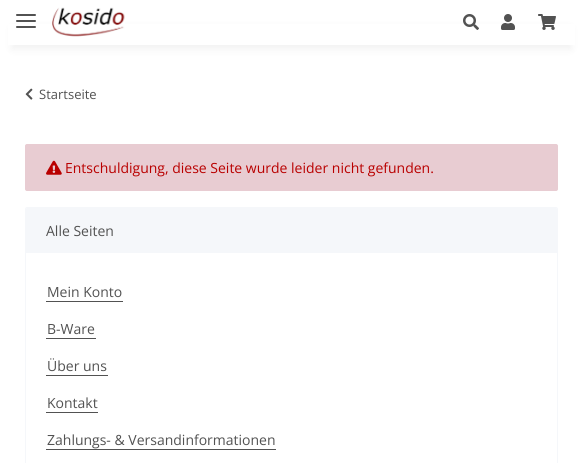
import math
import cairo



def rounded_rect(context, x, y, w, h, r):
    context.new_sub_path()
    for i, (u, v) in enumerate([(x + w - r, y + h - r), (x + r, y + h - r), (x + r, y + r), (x + w - r, y + r)]):
        context.arc(u, v, r, i * math.pi / 2, (i + 1) * math.pi / 2)
    context.close_path()


def draw_shadow(context, x, y, w, h, r, blur, alpha):
    context.push_group_with_content(cairo.Content.ALPHA)
    context.set_operator(cairo.Operator.SOURCE)
    for i in range(15, -16, -2):
        e = blur * i / 6
        if min(w, h) + 2 * e > 0:
            context.set_source_rgba(0, 0, 0, alpha * math.erfc((i - 1) / 8.5) / 2)
            rounded_rect(context, x - e, y - e, w + 2 * e, h + 2 * e, max(0, min(r + e + blur * .6, min(w, h) / 2 + e)))
            context.fill()
    context.mask(context.pop_group())


def draw_image(context, path, x, y, w, h):
    context.save()
    context.set_source_surface(cairo.ImageSurface.create_from_png(path), x, y)
    context.rectangle(x, y, w, h)
    context.fill()
    context.restore()


def draw(context):
    context.set_source_rgb(1, 1, 1)
    context.paint()
    context.set_source_rgb(0, 0, 0)
    draw_shadow(context, 12, 28, 559, 21, 0, 4.5, 0.06)
    context.set_source_rgb(1, 1, 1)
    context.rectangle(8, 24, 567, 21)
    context.fill()
    context.set_source_rgb(82 / 255, 82 / 255, 82 / 255)
    rounded_rect(context, 16, 20, 20, 2, 1)
    context.fill()
    rounded_rect(context, 16, 14, 20, 2, 1)
    context.fill()
    rounded_rect(context, 16, 26, 20, 2, 1)
    context.fill()
    draw_image(context, "images/1.png", 52, 7, 73, 30)
    draw_image(context, "images/2.png", 463, 14, 16, 16)
    draw_image(context, "images/3.png", 501, 14, 14, 16)
    draw_image(context, "images/4.png", 538, 14, 18, 16)
    draw_image(context, "images/5.png", 25, 88, 8, 12)
    context.set_source_rgb(232 / 255, 204 / 255, 210 / 255)
    rounded_rect(context, 25.5, 144.5, 532, 46, 1.5)
    context.fill_preserve()
    context.set_line_width(1)
    context.stroke()
    draw_image(context, "images/6.png", 46, 160, 16, 15)
    rounded_rect(context, 25.5, 207.5, 532, 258, 1.5)
    context.set_source_rgb(245 / 255, 247 / 255, 250 / 255)
    context.stroke()
    context.new_path()
    context.move_to(27, 208)
    context.line_to(556, 208)
    context.curve_to(556.5, 208, 557, 208.5, 557, 209)
    context.line_to(557, 253)
    context.line_to(26, 253)
    context.line_to(26, 209)
    context.curve_to(26, 208.5, 26.5, 208, 27, 208)
    context.close_path()
    context.fill()
    context.set_source_rgb(82 / 255, 82 / 255, 82 / 255)
    context.rectangle(46, 301, 77, 1)
    context.fill()
    context.rectangle(46, 338, 50, 1)
    context.fill()
    context.rectangle(46, 375, 62, 1)
    context.fill()
    context.rectangle(46, 412, 52, 1)
    context.fill()
    context.rectangle(46, 449, 230, 1)
    context.fill()
    context.select_font_face("Open Sans")
    context.set_font_size(13)
    context.move_to(39, 99)
    context.show_text("Startseite")
    context.set_font_size(14)
    context.set_source_rgb(185 / 255, 0, 0)
    context.move_to(65, 173)
    context.show_text("Entschuldigung, diese Seite wurde leider nicht gefunden.")
    context.set_source_rgb(82 / 255, 82 / 255, 82 / 255)
    context.move_to(46, 236)
    context.show_text("Alle Seiten")
    context.move_to(47, 297)
    context.show_text("Mein Konto")
    context.move_to(47, 334)
    context.show_text("B-Ware")
    context.move_to(47, 371)
    context.show_text("Über uns")
    context.move_to(47, 408)
    context.show_text("Kontakt")
    context.move_to(47, 445)
    context.show_text("Zahlungs- & Versandinformationen")


surface = cairo.ImageSurface(cairo.Format.RGB24, 583, 463)
context = cairo.Context(surface)
options = cairo.FontOptions()
options.set_hint_metrics(cairo.HintMetrics.OFF)
options.set_hint_style(cairo.HintStyle.NONE)
context.set_font_options(options)
context.set_miter_limit(4)
draw(context)
surface.write_to_png("out.png")
